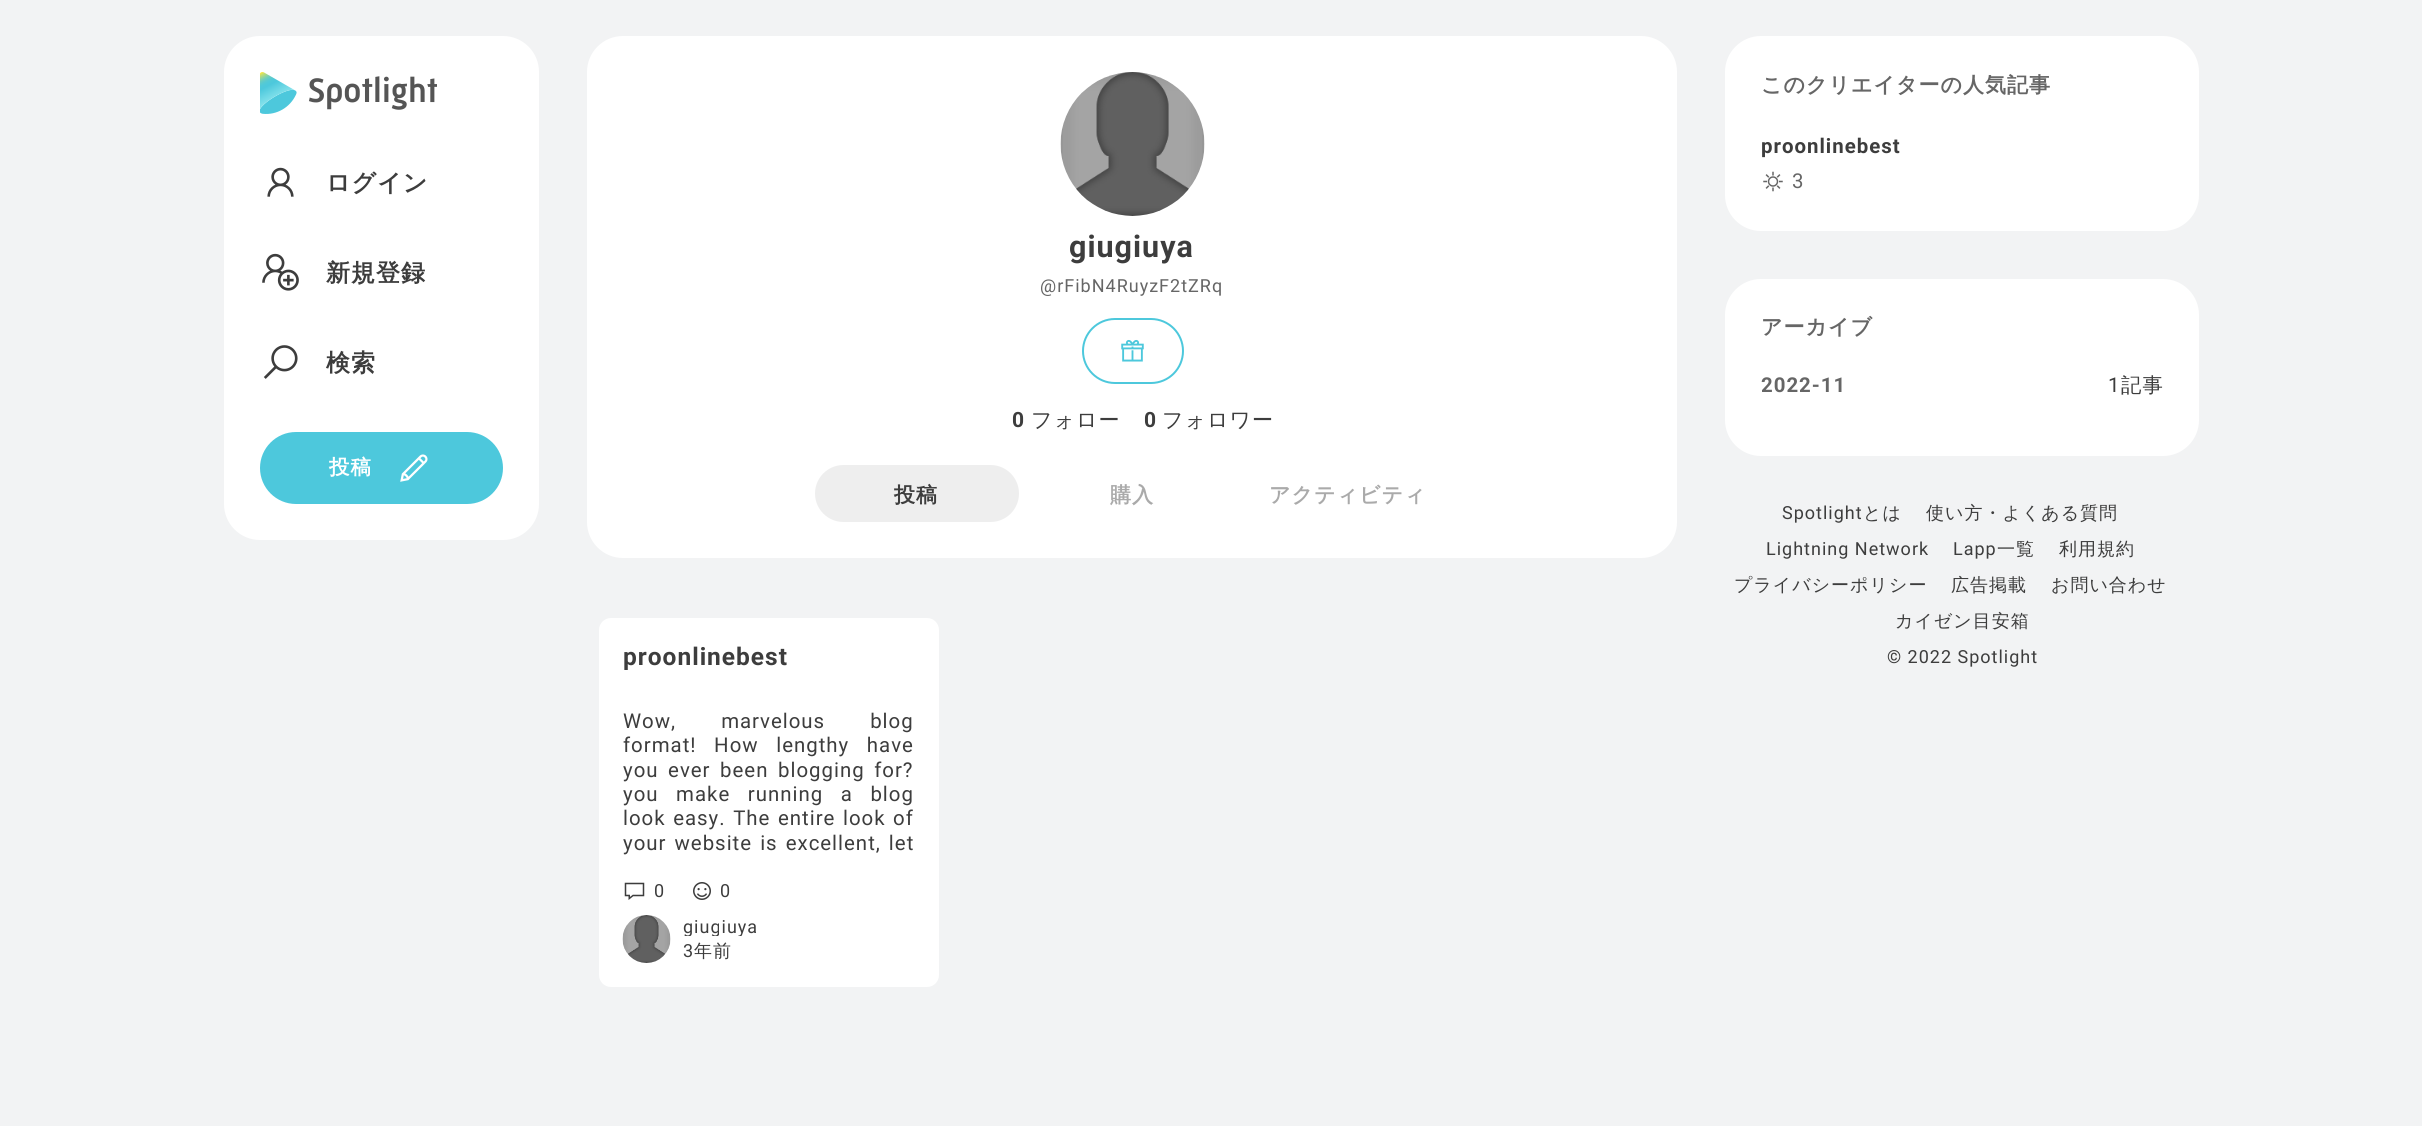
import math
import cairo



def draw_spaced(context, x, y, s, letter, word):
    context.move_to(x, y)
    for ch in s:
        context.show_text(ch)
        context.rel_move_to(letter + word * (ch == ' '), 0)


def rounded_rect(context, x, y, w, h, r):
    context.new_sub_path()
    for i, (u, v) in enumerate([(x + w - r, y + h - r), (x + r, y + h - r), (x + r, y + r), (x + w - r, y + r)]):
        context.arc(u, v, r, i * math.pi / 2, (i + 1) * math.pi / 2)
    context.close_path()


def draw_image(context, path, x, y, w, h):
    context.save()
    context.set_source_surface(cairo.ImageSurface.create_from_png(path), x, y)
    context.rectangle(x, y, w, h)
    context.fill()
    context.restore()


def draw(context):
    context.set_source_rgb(242 / 255, 243 / 255, 244 / 255)
    context.paint()
    context.set_source_rgb(1, 1, 1)
    rounded_rect(context, 224, 36, 315, 504, 36)
    context.fill()
    draw_image(context, "images/1.png", 260, 72, 177, 42)
    draw_image(context, "images/2.png", 267, 167, 27, 30)
    draw_image(context, "images/3.png", 262, 253, 37, 38)
    draw_image(context, "images/4.png", 263, 345, 35, 34)
    context.set_source_rgb(77 / 255, 200 / 255, 220 / 255)
    rounded_rect(context, 260, 432, 243, 72, 36)
    context.fill()
    draw_image(context, "images/5.png", 400, 454, 28, 28)
    context.set_source_rgb(1, 1, 1)
    rounded_rect(context, 587, 36, 1090, 522, 36)
    context.fill()
    draw_image(context, "images/6.png", 1060, 72, 145, 144)
    rounded_rect(context, 1083, 319, 100, 64, 32)
    context.set_source_rgb(77 / 255, 200 / 255, 220 / 255)
    context.stroke()
    draw_image(context, "images/7.png", 1121, 339, 23, 23)
    context.set_source_rgb(238 / 255, 238 / 255, 238 / 255)
    rounded_rect(context, 815, 465, 204, 57, 28.5)
    context.fill()
    context.set_source_rgb(1, 1, 1)
    rounded_rect(context, 599, 618, 340, 369, 12)
    context.fill()
    draw_image(context, "images/8.png", 624, 882, 21, 18)
    draw_image(context, "images/9.png", 693, 882, 18, 18)
    draw_image(context, "images/10.png", 622, 915, 49, 48)
    rounded_rect(context, 1725, 36, 474, 195, 36)
    context.fill()
    draw_image(context, "images/11.png", 1763, 171, 20, 21)
    rounded_rect(context, 1725, 279, 474, 177, 36)
    context.fill()
    context.select_font_face("WenQuanYi Zen Hei", cairo.FontSlant.NORMAL, cairo.FontWeight.BOLD)
    context.set_font_size(24)
    context.set_source_rgb(61 / 255, 61 / 255, 61 / 255)
    draw_spaced(context, 326, 191, "ログイン", 1, 0)
    draw_spaced(context, 326, 281, "新規登録", 1, 0)
    draw_spaced(context, 326, 371, "検索", 1, 0)
    context.set_font_size(20.4)
    context.set_source_rgb(1, 1, 1)
    draw_spaced(context, 329, 474, "投稿", 1, 0)
    context.select_font_face("Roboto", cairo.FontSlant.NORMAL, cairo.FontWeight.BOLD)
    context.set_font_size(30.5)
    context.set_source_rgb(61 / 255, 61 / 255, 61 / 255)
    draw_spaced(context, 1069, 257, "giugiuya", 1, 0)
    context.select_font_face("Roboto")
    context.set_font_size(18)
    context.set_source_rgb(102 / 255, 102 / 255, 102 / 255)
    draw_spaced(context, 1040, 292, "@rFibN4RuyzF2tZRq", 1, 0)
    context.select_font_face("Roboto", cairo.FontSlant.NORMAL, cairo.FontWeight.BOLD)
    context.set_font_size(21)
    context.set_source_rgb(61 / 255, 61 / 255, 61 / 255)
    draw_spaced(context, 1012, 427, "0", 1, 0)
    context.select_font_face("WenQuanYi Zen Hei Medium")
    draw_spaced(context, 1031, 427, "フォロー", 1, 0)
    context.select_font_face("Roboto", cairo.FontSlant.NORMAL, cairo.FontWeight.BOLD)
    draw_spaced(context, 1144, 427, "0", 1, 0)
    context.select_font_face("WenQuanYi Zen Hei Medium")
    draw_spaced(context, 1162, 427, "フォロワー", 1, 0)
    context.select_font_face("WenQuanYi Zen Hei", cairo.FontSlant.NORMAL, cairo.FontWeight.BOLD)
    draw_spaced(context, 894, 502, "投稿", 1, 0)
    context.set_source_rgb(170 / 255, 170 / 255, 170 / 255)
    draw_spaced(context, 1110, 502, "購入", 1, 0)
    draw_spaced(context, 1269, 502, "アクティビティ", 1, 0)
    context.select_font_face("Roboto", cairo.FontSlant.NORMAL, cairo.FontWeight.BOLD)
    context.set_font_size(24.5)
    context.set_source_rgb(61 / 255, 61 / 255, 61 / 255)
    draw_spaced(context, 623, 665, "proonlinebest", 1, 0)
    context.select_font_face("Roboto")
    context.set_font_size(20.4)
    draw_spaced(context, 623, 728, "Wow, marvelous blog", 1, 39)
    draw_spaced(context, 623, 752, "format! How lengthy have", 1, 11.5)
    draw_spaced(context, 623, 777, "you ever been blogging for?", 1, 3.5)
    draw_spaced(context, 623, 801, "you make running a blog", 1, 11.5)
    draw_spaced(context, 623, 825, "look easy. The entire look of", 1, 1.5)
    draw_spaced(context, 623, 850, "your website is excellent, let", 1, 2)
    context.set_font_size(18)
    draw_spaced(context, 654, 897, "0", 1, 0)
    draw_spaced(context, 720, 897, "0", 1, 0)
    context.save()
    context.rectangle(683, 918, 76, 18)
    context.clip()
    draw_spaced(context, 683, 933, "giugiuya", 1, 0)
    context.restore()
    draw_spaced(context, 683, 957, "3", 1, 0)
    context.select_font_face("WenQuanYi Zen Hei Medium")
    draw_spaced(context, 694, 957, "年前", 1, 0)
    context.select_font_face("WenQuanYi Zen Hei", cairo.FontSlant.NORMAL, cairo.FontWeight.BOLD)
    context.set_font_size(21)
    context.set_source_rgb(102 / 255, 102 / 255, 102 / 255)
    draw_spaced(context, 1761, 92, "このクリエイターの人気記事", 1, 0)
    context.select_font_face("Roboto", cairo.FontSlant.NORMAL, cairo.FontWeight.BOLD)
    context.set_font_size(20.4)
    context.set_source_rgb(61 / 255, 61 / 255, 61 / 255)
    draw_spaced(context, 1761, 153, "proonlinebest", 1, 0)
    context.select_font_face("Roboto")
    context.set_source_rgb(102 / 255, 102 / 255, 102 / 255)
    draw_spaced(context, 1792, 188, "3", 1, 0)
    context.select_font_face("WenQuanYi Zen Hei", cairo.FontSlant.NORMAL, cairo.FontWeight.BOLD)
    context.set_font_size(21)
    draw_spaced(context, 1761, 334, "アーカイブ", 1, 0)
    context.select_font_face("Roboto", cairo.FontSlant.NORMAL, cairo.FontWeight.BOLD)
    context.set_font_size(20.4)
    draw_spaced(context, 1761, 392, "2022-11", 1, 0)
    context.select_font_face("Roboto")
    context.set_source_rgb(61 / 255, 61 / 255, 61 / 255)
    draw_spaced(context, 2108, 392, "1", 1, 0)
    context.select_font_face("WenQuanYi Zen Hei Medium")
    draw_spaced(context, 2121, 392, "記事", 1, 0)
    context.select_font_face("Roboto")
    context.set_font_size(18)
    draw_spaced(context, 1782, 519, "Spotlight", 1, 0)
    context.select_font_face("WenQuanYi Zen Hei Medium")
    draw_spaced(context, 1863, 519, "とは", 1, 0)
    draw_spaced(context, 1926, 519, "使い方・よくある質問", 1, 0)
    context.select_font_face("Roboto")
    draw_spaced(context, 1766, 555, "Lightning Network", 1, 0)
    draw_spaced(context, 1953, 555, "Lapp", 1, 0)
    context.select_font_face("WenQuanYi Zen Hei Medium")
    draw_spaced(context, 1997, 555, "一覧", 1, 0)
    draw_spaced(context, 2059, 555, "利用規約", 1, 0)
    draw_spaced(context, 1734, 591, "プライバシーポリシー", 1, 0)
    draw_spaced(context, 1951, 591, "広告掲載", 1, 0)
    draw_spaced(context, 2051, 591, "お問い合わせ", 1, 0)
    draw_spaced(context, 1895, 627, "カイゼン目安箱", 1, 0)
    context.select_font_face("Roboto")
    draw_spaced(context, 1887, 663, "© 2022 Spotlight", 1, 0)


surface = cairo.ImageSurface(cairo.Format.RGB24, 2422, 1126)
context = cairo.Context(surface)
options = cairo.FontOptions()
options.set_hint_metrics(cairo.HintMetrics.OFF)
options.set_hint_style(cairo.HintStyle.NONE)
context.set_font_options(options)
context.set_miter_limit(4)
draw(context)
surface.write_to_png("out.png")
